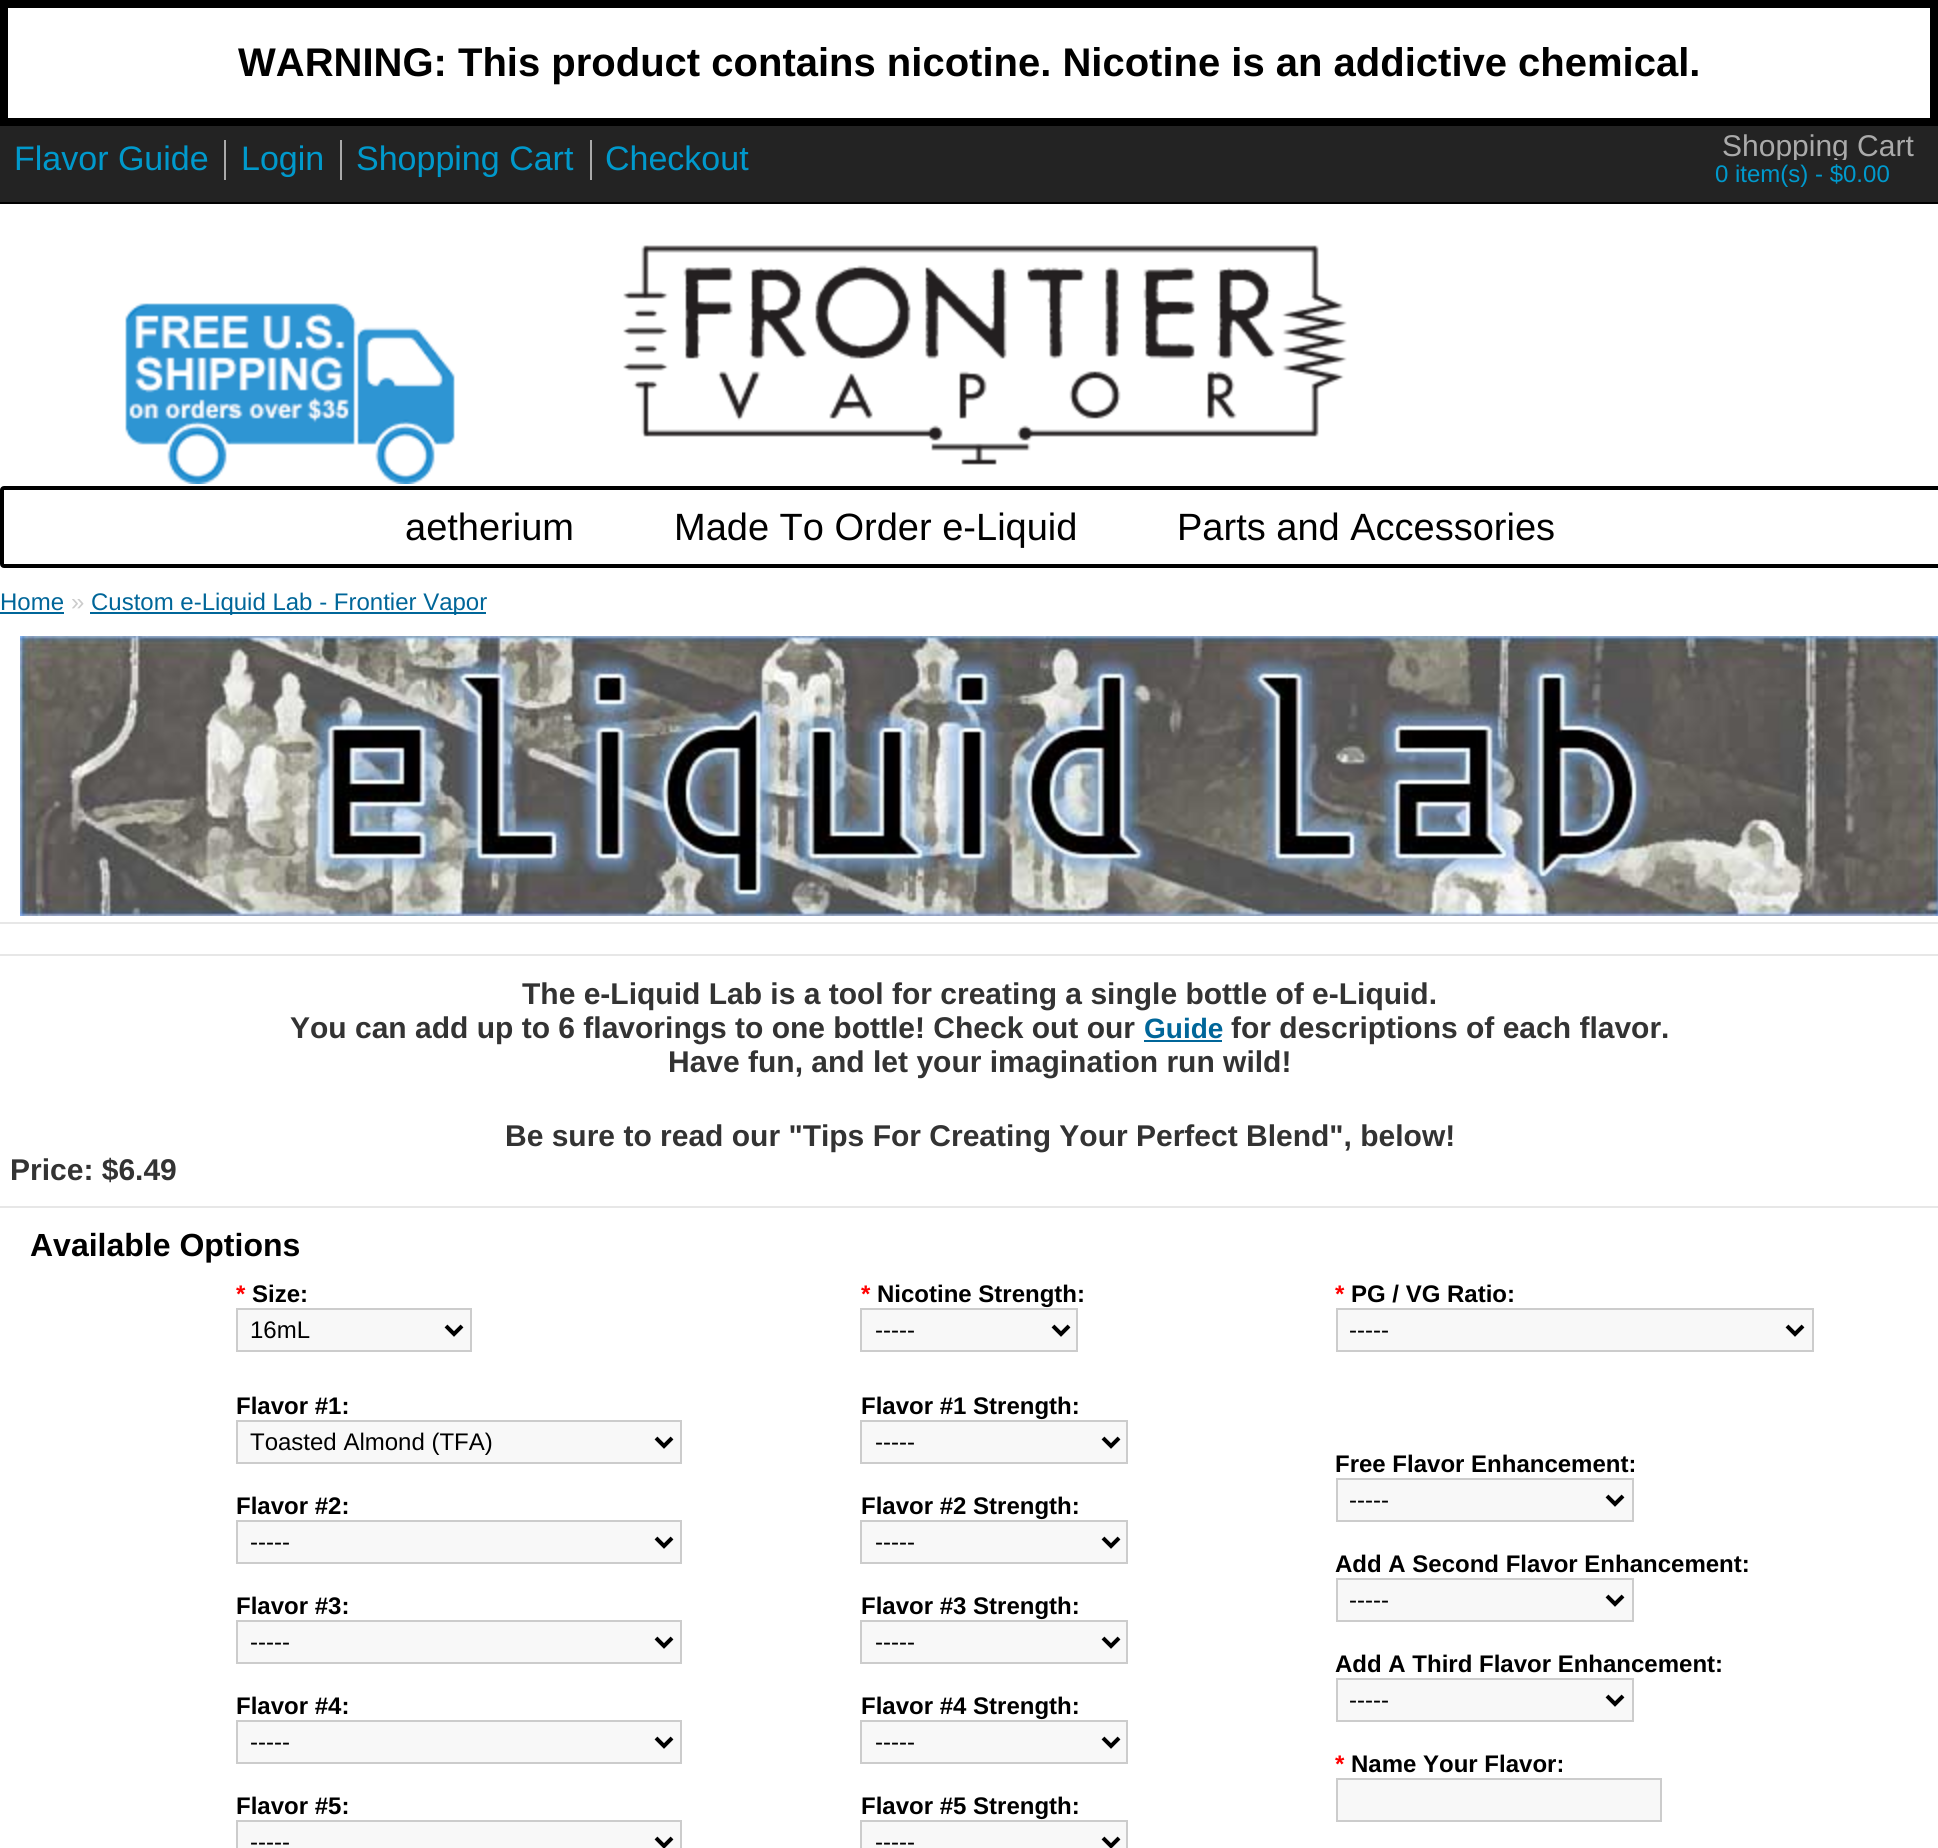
import math
import cairo



def rounded_rect(context, x, y, w, h, r):
    context.new_sub_path()
    for i, (u, v) in enumerate([(x + w - r, y + h - r), (x + r, y + h - r), (x + r, y + r), (x + w - r, y + r)]):
        context.arc(u, v, r, i * math.pi / 2, (i + 1) * math.pi / 2)
    context.close_path()


def draw_image(context, path, x, y, w, h):
    context.save()
    context.set_source_surface(cairo.ImageSurface.create_from_png(path), x, y)
    context.rectangle(x, y, w, h)
    context.fill()
    context.restore()


def draw(context):
    context.set_source_rgb(1, 1, 1)
    context.paint()
    context.rectangle(4, 4, 1930, 118)
    context.set_source_rgb(0, 0, 0)
    context.set_line_width(8)
    context.stroke()
    context.set_source_rgb(35 / 255, 35 / 255, 35 / 255)
    context.rectangle(0, 126, 1938, 76)
    context.fill()
    context.set_source_rgb(0, 0, 0)
    context.rectangle(0, 202, 1938, 2)
    context.fill()
    context.set_source_rgb(170 / 255, 170 / 255, 170 / 255)
    context.rectangle(224, 140, 2, 40)
    context.fill()
    context.rectangle(340, 140, 2, 40)
    context.fill()
    context.rectangle(590, 140, 2, 40)
    context.fill()
    draw_image(context, "images/1.png", 125, 303, 330, 181)
    draw_image(context, "images/2.png", 623, 245, 724, 220)
    rounded_rect(context, 2, 488, 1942, 78, 2)
    context.set_source_rgb(0, 0, 0)
    context.set_line_width(4)
    context.stroke()
    context.set_source_rgb(0, 102 / 255, 153 / 255)
    context.rectangle(0, 612, 64, 2)
    context.fill()
    context.rectangle(90, 612, 396, 2)
    context.fill()
    draw_image(context, "images/3.png", 20, 636, 1918, 280)
    context.set_source_rgb(231 / 255, 231 / 255, 231 / 255)
    context.rectangle(0, 922, 1938, 2)
    context.fill()
    context.rectangle(0, 954, 1938, 2)
    context.fill()
    context.rectangle(0, 1206, 1938, 2)
    context.fill()
    context.set_source_rgb(0, 102 / 255, 153 / 255)
    context.rectangle(1144, 1040, 78, 2)
    context.fill()
    context.set_source_rgb(248 / 255, 248 / 255, 248 / 255)
    context.rectangle(237, 1309, 234, 42)
    context.fill_preserve()
    context.set_source_rgb(204 / 255, 204 / 255, 204 / 255)
    context.set_line_width(2)
    context.stroke()
    context.new_path()
    context.move_to(446, 1326)
    context.line_to(454, 1334)
    context.line_to(462, 1326)
    context.set_source_rgb(0, 0, 0)
    context.set_line_width(4)
    context.stroke()
    context.set_source_rgb(248 / 255, 248 / 255, 248 / 255)
    context.rectangle(861, 1309, 216, 42)
    context.fill_preserve()
    context.set_source_rgb(204 / 255, 204 / 255, 204 / 255)
    context.set_line_width(2)
    context.stroke()
    context.new_path()
    context.move_to(1053, 1326)
    context.line_to(1061, 1334)
    context.line_to(1069, 1326)
    context.set_source_rgb(0, 0, 0)
    context.set_line_width(4)
    context.stroke()
    context.set_source_rgb(248 / 255, 248 / 255, 248 / 255)
    context.rectangle(1337, 1309, 476, 42)
    context.fill_preserve()
    context.set_source_rgb(204 / 255, 204 / 255, 204 / 255)
    context.set_line_width(2)
    context.stroke()
    context.new_path()
    context.move_to(1787, 1326)
    context.line_to(1795, 1334)
    context.line_to(1803, 1326)
    context.set_source_rgb(0, 0, 0)
    context.set_line_width(4)
    context.stroke()
    context.set_source_rgb(248 / 255, 248 / 255, 248 / 255)
    context.rectangle(237, 1421, 444, 42)
    context.fill_preserve()
    context.set_source_rgb(204 / 255, 204 / 255, 204 / 255)
    context.set_line_width(2)
    context.stroke()
    context.new_path()
    context.move_to(656, 1438)
    context.line_to(664, 1446)
    context.line_to(672, 1438)
    context.set_source_rgb(0, 0, 0)
    context.set_line_width(4)
    context.stroke()
    context.set_source_rgb(248 / 255, 248 / 255, 248 / 255)
    context.rectangle(237, 1521, 444, 42)
    context.fill_preserve()
    context.set_source_rgb(204 / 255, 204 / 255, 204 / 255)
    context.set_line_width(2)
    context.stroke()
    context.new_path()
    context.move_to(656, 1538)
    context.line_to(664, 1546)
    context.line_to(672, 1538)
    context.set_source_rgb(0, 0, 0)
    context.set_line_width(4)
    context.stroke()
    context.set_source_rgb(248 / 255, 248 / 255, 248 / 255)
    context.rectangle(237, 1621, 444, 42)
    context.fill_preserve()
    context.set_source_rgb(204 / 255, 204 / 255, 204 / 255)
    context.set_line_width(2)
    context.stroke()
    context.new_path()
    context.move_to(656, 1638)
    context.line_to(664, 1646)
    context.line_to(672, 1638)
    context.set_source_rgb(0, 0, 0)
    context.set_line_width(4)
    context.stroke()
    context.set_source_rgb(248 / 255, 248 / 255, 248 / 255)
    context.rectangle(237, 1721, 444, 42)
    context.fill_preserve()
    context.set_source_rgb(204 / 255, 204 / 255, 204 / 255)
    context.set_line_width(2)
    context.stroke()
    context.new_path()
    context.move_to(656, 1738)
    context.line_to(664, 1746)
    context.line_to(672, 1738)
    context.set_source_rgb(0, 0, 0)
    context.set_line_width(4)
    context.stroke()
    context.set_source_rgb(248 / 255, 248 / 255, 248 / 255)
    context.rectangle(237, 1821, 444, 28)
    context.fill_preserve()
    context.set_source_rgb(204 / 255, 204 / 255, 204 / 255)
    context.set_line_width(2)
    context.stroke()
    context.new_path()
    context.move_to(656, 1838)
    context.line_to(664, 1846)
    context.line_to(672, 1838)
    context.set_source_rgb(0, 0, 0)
    context.set_line_width(4)
    context.stroke()
    context.set_source_rgb(248 / 255, 248 / 255, 248 / 255)
    context.rectangle(861, 1421, 266, 42)
    context.fill_preserve()
    context.set_source_rgb(204 / 255, 204 / 255, 204 / 255)
    context.set_line_width(2)
    context.stroke()
    context.new_path()
    context.move_to(1103, 1438)
    context.line_to(1111, 1446)
    context.line_to(1119, 1438)
    context.set_source_rgb(0, 0, 0)
    context.set_line_width(4)
    context.stroke()
    context.set_source_rgb(248 / 255, 248 / 255, 248 / 255)
    context.rectangle(861, 1521, 266, 42)
    context.fill_preserve()
    context.set_source_rgb(204 / 255, 204 / 255, 204 / 255)
    context.set_line_width(2)
    context.stroke()
    context.new_path()
    context.move_to(1103, 1538)
    context.line_to(1111, 1546)
    context.line_to(1119, 1538)
    context.set_source_rgb(0, 0, 0)
    context.set_line_width(4)
    context.stroke()
    context.set_source_rgb(248 / 255, 248 / 255, 248 / 255)
    context.rectangle(861, 1621, 266, 42)
    context.fill_preserve()
    context.set_source_rgb(204 / 255, 204 / 255, 204 / 255)
    context.set_line_width(2)
    context.stroke()
    context.new_path()
    context.move_to(1103, 1638)
    context.line_to(1111, 1646)
    context.line_to(1119, 1638)
    context.set_source_rgb(0, 0, 0)
    context.set_line_width(4)
    context.stroke()
    context.set_source_rgb(248 / 255, 248 / 255, 248 / 255)
    context.rectangle(861, 1721, 266, 42)
    context.fill_preserve()
    context.set_source_rgb(204 / 255, 204 / 255, 204 / 255)
    context.set_line_width(2)
    context.stroke()
    context.new_path()
    context.move_to(1103, 1738)
    context.line_to(1111, 1746)
    context.line_to(1119, 1738)
    context.set_source_rgb(0, 0, 0)
    context.set_line_width(4)
    context.stroke()
    context.set_source_rgb(248 / 255, 248 / 255, 248 / 255)
    context.rectangle(861, 1821, 266, 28)
    context.fill_preserve()
    context.set_source_rgb(204 / 255, 204 / 255, 204 / 255)
    context.set_line_width(2)
    context.stroke()
    context.new_path()
    context.move_to(1103, 1838)
    context.line_to(1111, 1846)
    context.line_to(1119, 1838)
    context.set_source_rgb(0, 0, 0)
    context.set_line_width(4)
    context.stroke()
    context.set_source_rgb(248 / 255, 248 / 255, 248 / 255)
    context.rectangle(1337, 1479, 296, 42)
    context.fill_preserve()
    context.set_source_rgb(204 / 255, 204 / 255, 204 / 255)
    context.set_line_width(2)
    context.stroke()
    context.new_path()
    context.move_to(1607, 1496)
    context.line_to(1615, 1504)
    context.line_to(1623, 1496)
    context.set_source_rgb(0, 0, 0)
    context.set_line_width(4)
    context.stroke()
    context.set_source_rgb(248 / 255, 248 / 255, 248 / 255)
    context.rectangle(1337, 1579, 296, 42)
    context.fill_preserve()
    context.set_source_rgb(204 / 255, 204 / 255, 204 / 255)
    context.set_line_width(2)
    context.stroke()
    context.new_path()
    context.move_to(1607, 1596)
    context.line_to(1615, 1604)
    context.line_to(1623, 1596)
    context.set_source_rgb(0, 0, 0)
    context.set_line_width(4)
    context.stroke()
    context.set_source_rgb(248 / 255, 248 / 255, 248 / 255)
    context.rectangle(1337, 1679, 296, 42)
    context.fill_preserve()
    context.set_source_rgb(204 / 255, 204 / 255, 204 / 255)
    context.set_line_width(2)
    context.stroke()
    context.new_path()
    context.move_to(1607, 1696)
    context.line_to(1615, 1704)
    context.line_to(1623, 1696)
    context.set_source_rgb(0, 0, 0)
    context.set_line_width(4)
    context.stroke()
    context.set_source_rgb(248 / 255, 248 / 255, 248 / 255)
    context.rectangle(1337, 1779, 324, 42)
    context.fill_preserve()
    context.set_source_rgb(204 / 255, 204 / 255, 204 / 255)
    context.set_line_width(2)
    context.stroke()
    context.select_font_face("Liberation Sans", cairo.FontSlant.NORMAL, cairo.FontWeight.BOLD)
    context.set_font_size(40)
    context.set_source_rgb(0, 0, 0)
    context.move_to(238, 76)
    context.show_text("WARNING: This product contains nicotine. Nicotine is an addictive chemical.")
    context.select_font_face("Liberation Sans")
    context.set_font_size(34)
    context.set_source_rgb(0, 153 / 255, 204 / 255)
    context.move_to(14, 170)
    context.show_text("Flavor Guide")
    context.move_to(241, 170)
    context.show_text("Login")
    context.move_to(356, 170)
    context.show_text("Shopping Cart")
    context.move_to(605, 170)
    context.show_text("Checkout")
    context.set_font_size(30)
    context.set_source_rgb(170 / 255, 170 / 255, 170 / 255)
    context.move_to(1722, 156)
    context.show_text("Shopping Cart")
    context.set_font_size(24)
    context.set_source_rgb(0, 153 / 255, 204 / 255)
    context.move_to(1715, 182)
    context.show_text("0 item(s) - $0.00")
    context.set_source_rgb(35 / 255, 35 / 255, 35 / 255)
    context.rectangle(1777, 160, 69, 3)
    context.fill()
    context.set_font_size(38)
    context.set_source_rgb(0, 0, 0)
    context.move_to(405, 540)
    context.show_text("aetherium")
    context.move_to(674, 540)
    context.show_text("Made To Order e-Liquid")
    context.move_to(1177, 540)
    context.show_text("Parts and Accessories")
    context.set_font_size(24)
    context.set_source_rgb(0, 102 / 255, 153 / 255)
    context.move_to(0, 610)
    context.show_text("Home")
    context.set_source_rgb(204 / 255, 204 / 255, 204 / 255)
    context.move_to(71, 610)
    context.show_text("»")
    context.set_source_rgb(0, 102 / 255, 153 / 255)
    context.move_to(91, 610)
    context.show_text("Custom e-Liquid Lab - Frontier Vapor")
    context.select_font_face("Liberation Sans", cairo.FontSlant.NORMAL, cairo.FontWeight.BOLD)
    context.set_font_size(30)
    context.set_source_rgb(51 / 255, 51 / 255, 51 / 255)
    context.move_to(522, 1004)
    context.show_text("The e-Liquid Lab is a tool for creating a single bottle of e-Liquid.")
    context.move_to(290, 1038)
    context.show_text("You can add up to 6 flavorings to one bottle! Check out our")
    context.set_font_size(28)
    context.set_source_rgb(0, 102 / 255, 153 / 255)
    context.move_to(1144, 1038)
    context.show_text("Guide")
    context.set_font_size(30)
    context.set_source_rgb(51 / 255, 51 / 255, 51 / 255)
    context.move_to(1231, 1038)
    context.show_text("for descriptions of each flavor.")
    context.move_to(668, 1072)
    context.show_text("Have fun, and let your imagination run wild!")
    context.move_to(505, 1146)
    context.show_text("Be sure to read our \"Tips For Creating Your Perfect Blend\", below!")
    context.move_to(10, 1180)
    context.show_text("Price: $6.49")
    context.set_font_size(32)
    context.set_source_rgb(0, 0, 0)
    context.move_to(30, 1256)
    context.show_text("Available Options")
    context.set_font_size(24)
    context.set_source_rgb(1, 0, 0)
    context.move_to(236, 1302)
    context.show_text("*")
    context.set_source_rgb(0, 0, 0)
    context.move_to(252, 1302)
    context.show_text("Size:")
    context.select_font_face("Liberation Sans")
    context.move_to(250, 1338)
    context.show_text("16mL")
    context.select_font_face("Liberation Sans", cairo.FontSlant.NORMAL, cairo.FontWeight.BOLD)
    context.set_source_rgb(1, 0, 0)
    context.move_to(861, 1302)
    context.show_text("*")
    context.set_source_rgb(0, 0, 0)
    context.move_to(877, 1302)
    context.show_text("Nicotine Strength:")
    context.select_font_face("Liberation Sans")
    context.move_to(875, 1338)
    context.show_text("-----")
    context.select_font_face("Liberation Sans", cairo.FontSlant.NORMAL, cairo.FontWeight.BOLD)
    context.set_source_rgb(1, 0, 0)
    context.move_to(1335, 1302)
    context.show_text("*")
    context.set_source_rgb(0, 0, 0)
    context.move_to(1351, 1302)
    context.show_text("PG / VG Ratio:")
    context.select_font_face("Liberation Sans")
    context.move_to(1349, 1338)
    context.show_text("-----")
    context.select_font_face("Liberation Sans", cairo.FontSlant.NORMAL, cairo.FontWeight.BOLD)
    context.move_to(236, 1414)
    context.show_text("Flavor #1:")
    context.select_font_face("Liberation Sans")
    context.move_to(250, 1450)
    context.show_text("Toasted Almond (TFA)")
    context.select_font_face("Liberation Sans", cairo.FontSlant.NORMAL, cairo.FontWeight.BOLD)
    context.move_to(236, 1514)
    context.show_text("Flavor #2:")
    context.select_font_face("Liberation Sans")
    context.move_to(250, 1550)
    context.show_text("-----")
    context.select_font_face("Liberation Sans", cairo.FontSlant.NORMAL, cairo.FontWeight.BOLD)
    context.move_to(236, 1614)
    context.show_text("Flavor #3:")
    context.select_font_face("Liberation Sans")
    context.move_to(250, 1650)
    context.show_text("-----")
    context.select_font_face("Liberation Sans", cairo.FontSlant.NORMAL, cairo.FontWeight.BOLD)
    context.move_to(236, 1714)
    context.show_text("Flavor #4:")
    context.select_font_face("Liberation Sans")
    context.move_to(250, 1750)
    context.show_text("-----")
    context.select_font_face("Liberation Sans", cairo.FontSlant.NORMAL, cairo.FontWeight.BOLD)
    context.move_to(236, 1814)
    context.show_text("Flavor #5:")
    context.select_font_face("Liberation Sans")
    context.move_to(250, 1850)
    context.show_text("-----")
    context.select_font_face("Liberation Sans", cairo.FontSlant.NORMAL, cairo.FontWeight.BOLD)
    context.move_to(861, 1414)
    context.show_text("Flavor #1 Strength:")
    context.select_font_face("Liberation Sans")
    context.move_to(875, 1450)
    context.show_text("-----")
    context.select_font_face("Liberation Sans", cairo.FontSlant.NORMAL, cairo.FontWeight.BOLD)
    context.move_to(861, 1514)
    context.show_text("Flavor #2 Strength:")
    context.select_font_face("Liberation Sans")
    context.move_to(875, 1550)
    context.show_text("-----")
    context.select_font_face("Liberation Sans", cairo.FontSlant.NORMAL, cairo.FontWeight.BOLD)
    context.move_to(861, 1614)
    context.show_text("Flavor #3 Strength:")
    context.select_font_face("Liberation Sans")
    context.move_to(875, 1650)
    context.show_text("-----")
    context.select_font_face("Liberation Sans", cairo.FontSlant.NORMAL, cairo.FontWeight.BOLD)
    context.move_to(861, 1714)
    context.show_text("Flavor #4 Strength:")
    context.select_font_face("Liberation Sans")
    context.move_to(875, 1750)
    context.show_text("-----")
    context.select_font_face("Liberation Sans", cairo.FontSlant.NORMAL, cairo.FontWeight.BOLD)
    context.move_to(861, 1814)
    context.show_text("Flavor #5 Strength:")
    context.select_font_face("Liberation Sans")
    context.move_to(875, 1850)
    context.show_text("-----")
    context.select_font_face("Liberation Sans", cairo.FontSlant.NORMAL, cairo.FontWeight.BOLD)
    context.move_to(1335, 1472)
    context.show_text("Free Flavor Enhancement:")
    context.select_font_face("Liberation Sans")
    context.move_to(1349, 1508)
    context.show_text("-----")
    context.select_font_face("Liberation Sans", cairo.FontSlant.NORMAL, cairo.FontWeight.BOLD)
    context.move_to(1335, 1572)
    context.show_text("Add A Second Flavor Enhancement:")
    context.select_font_face("Liberation Sans")
    context.move_to(1349, 1608)
    context.show_text("-----")
    context.select_font_face("Liberation Sans", cairo.FontSlant.NORMAL, cairo.FontWeight.BOLD)
    context.move_to(1335, 1672)
    context.show_text("Add A Third Flavor Enhancement:")
    context.select_font_face("Liberation Sans")
    context.move_to(1349, 1708)
    context.show_text("-----")
    context.select_font_face("Liberation Sans", cairo.FontSlant.NORMAL, cairo.FontWeight.BOLD)
    context.set_source_rgb(1, 0, 0)
    context.move_to(1335, 1772)
    context.show_text("*")
    context.set_source_rgb(0, 0, 0)
    context.move_to(1351, 1772)
    context.show_text("Name Your Flavor:")


surface = cairo.ImageSurface(cairo.Format.RGB24, 1938, 1848)
context = cairo.Context(surface)
options = cairo.FontOptions()
options.set_hint_metrics(cairo.HintMetrics.OFF)
options.set_hint_style(cairo.HintStyle.NONE)
context.set_font_options(options)
context.set_miter_limit(4)
draw(context)
surface.write_to_png("out.png")
